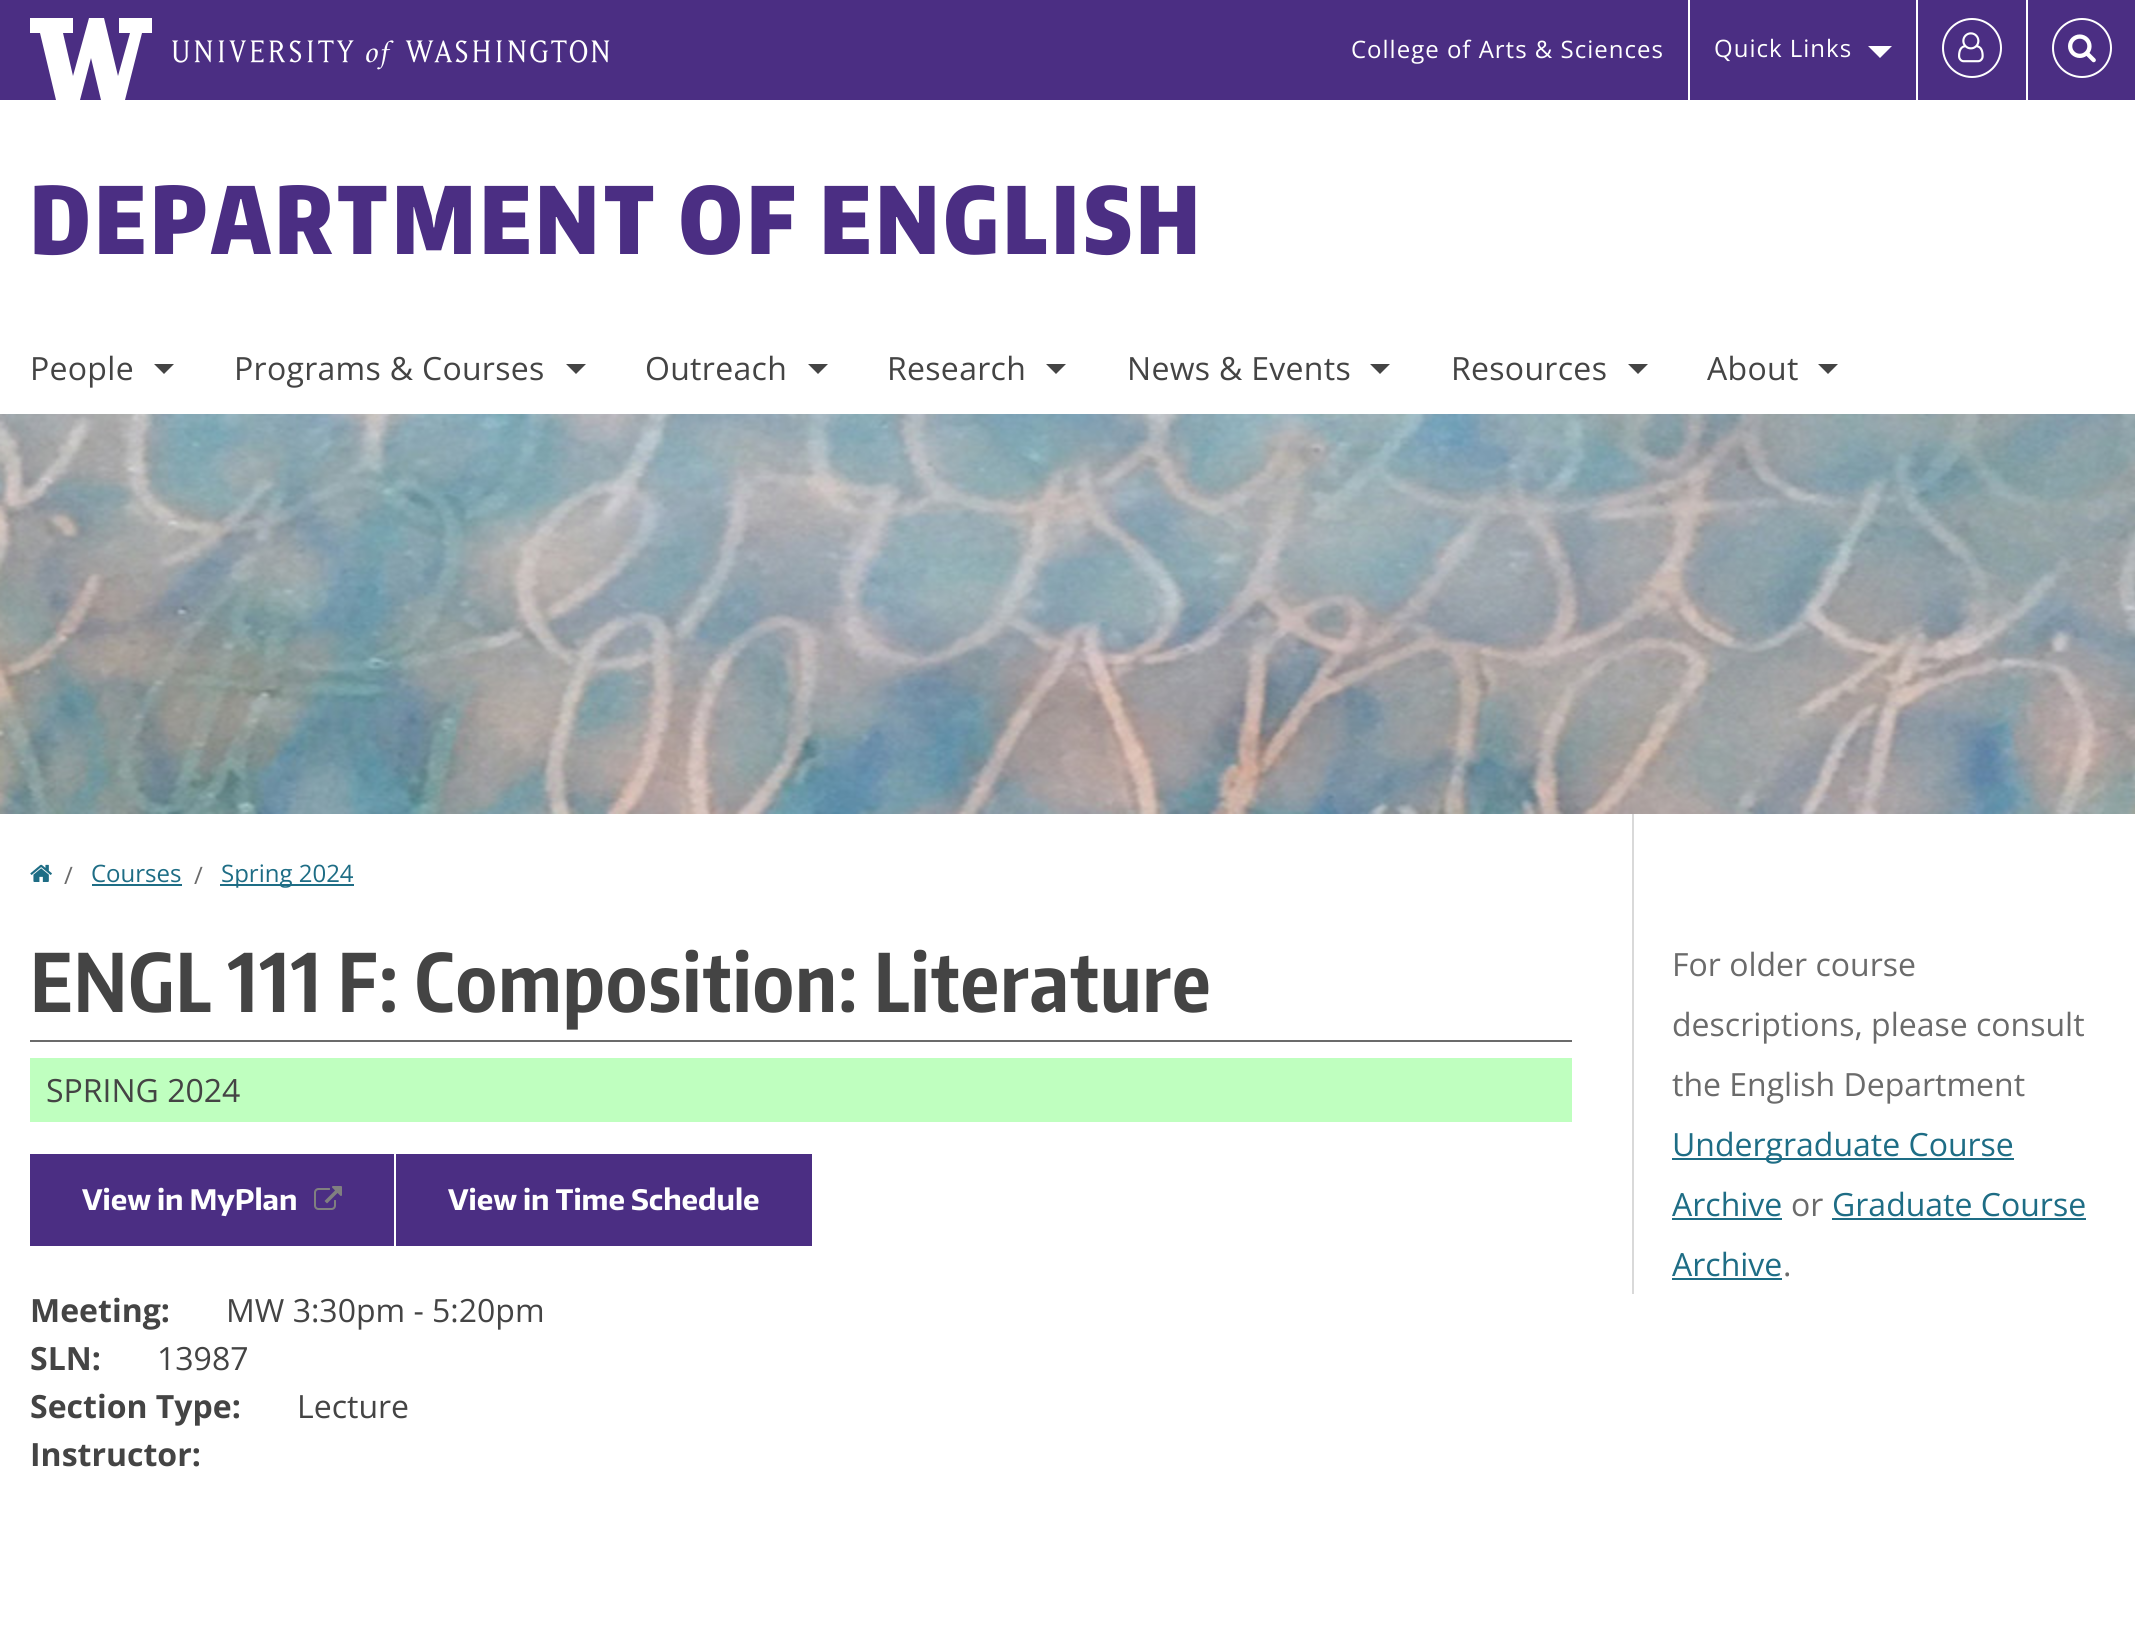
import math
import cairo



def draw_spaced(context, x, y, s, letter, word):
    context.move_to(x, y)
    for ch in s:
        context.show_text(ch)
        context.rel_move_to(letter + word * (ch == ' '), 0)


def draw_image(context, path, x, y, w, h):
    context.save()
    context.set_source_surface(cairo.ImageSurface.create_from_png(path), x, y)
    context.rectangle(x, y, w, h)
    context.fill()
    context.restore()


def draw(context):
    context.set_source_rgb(1, 1, 1)
    context.paint()
    context.set_source_rgb(75 / 255, 46 / 255, 131 / 255)
    context.rectangle(0, 0, 2135, 100)
    context.fill()
    context.set_source_rgb(1, 1, 1)
    context.new_path()
    context.move_to(119, 18)
    context.line_to(119, 33)
    context.line_to(130, 33)
    context.line_to(118, 76)
    context.line_to(104, 18)
    context.line_to(89, 18)
    context.line_to(73, 76)
    context.line_to(63, 33)
    context.line_to(73, 33)
    context.line_to(73, 18)
    context.line_to(30, 18)
    context.line_to(30, 33)
    context.line_to(40, 33)
    context.line_to(56, 100)
    context.line_to(80, 100)
    context.line_to(91, 58)
    context.line_to(101, 100)
    context.line_to(125, 100)
    context.line_to(142, 33)
    context.line_to(152, 33)
    context.line_to(152, 18)
    context.close_path()
    context.fill()
    draw_image(context, "images/1.png", 172, 40, 438, 30)
    context.rectangle(1688, 0, 2, 100)
    context.fill()
    context.new_path()
    context.move_to(1868, 46)
    context.line_to(1892, 46)
    context.line_to(1880, 58)
    context.close_path()
    context.fill()
    context.rectangle(1916, 0, 2, 100)
    context.fill()
    context.arc(1972, 48, 29, 0, 2 * math.pi)
    context.stroke()
    draw_image(context, "images/2.png", 1958, 32, 26, 31)
    context.rectangle(2026, 0, 2, 100)
    context.fill()
    context.arc(2082, 48, 29, 0, 2 * math.pi)
    context.stroke()
    draw_image(context, "images/3.png", 2068, 34, 28, 29)
    context.set_source_rgb(68 / 255, 68 / 255, 68 / 255)
    context.new_path()
    context.move_to(154, 364)
    context.line_to(174, 364)
    context.line_to(164, 374)
    context.close_path()
    context.fill()
    context.new_path()
    context.move_to(566, 364)
    context.line_to(586, 364)
    context.line_to(576, 374)
    context.close_path()
    context.fill()
    context.new_path()
    context.move_to(808, 364)
    context.line_to(828, 364)
    context.line_to(818, 374)
    context.close_path()
    context.fill()
    context.new_path()
    context.move_to(1046, 364)
    context.line_to(1066, 364)
    context.line_to(1056, 374)
    context.close_path()
    context.fill()
    context.new_path()
    context.move_to(1370, 364)
    context.line_to(1390, 364)
    context.line_to(1380, 374)
    context.close_path()
    context.fill()
    context.new_path()
    context.move_to(1628, 364)
    context.line_to(1648, 364)
    context.line_to(1638, 374)
    context.close_path()
    context.fill()
    context.new_path()
    context.move_to(1818, 364)
    context.line_to(1838, 364)
    context.line_to(1828, 374)
    context.close_path()
    context.fill()
    draw_image(context, "images/4.png", 0, 414, 2135, 400)
    draw_image(context, "images/5.png", 30, 864, 22, 18)
    context.set_source_rgb(30 / 255, 109 / 255, 133 / 255)
    context.rectangle(92, 884, 90, 2)
    context.fill()
    context.rectangle(220, 884, 134, 2)
    context.fill()
    context.set_source_rgb(107 / 255, 107 / 255, 107 / 255)
    context.rectangle(30, 1040, 1542, 2)
    context.fill()
    context.set_source_rgb(191 / 255, 1, 191 / 255)
    context.rectangle(30, 1058, 1542, 64)
    context.fill()
    context.set_source_rgb(75 / 255, 46 / 255, 131 / 255)
    context.rectangle(30, 1154, 364, 92)
    context.fill()
    draw_image(context, "images/6.png", 314, 1186, 28, 24)
    context.rectangle(396, 1154, 416, 92)
    context.fill()
    context.set_source_rgb(217 / 255, 217 / 255, 217 / 255)
    context.rectangle(1632, 814, 2, 480)
    context.fill()
    context.set_source_rgb(30 / 255, 109 / 255, 133 / 255)
    context.rectangle(1672, 1158, 342, 2)
    context.fill()
    context.rectangle(1672, 1218, 110, 2)
    context.fill()
    context.rectangle(1832, 1218, 254, 2)
    context.fill()
    context.rectangle(1672, 1278, 110, 2)
    context.fill()
    context.select_font_face("Open Sans")
    context.set_font_size(24)
    context.set_source_rgb(1, 1, 1)
    draw_spaced(context, 1351, 58, "College of Arts & Sciences", 1, 0)
    draw_spaced(context, 1714, 57, "Quick Links", 1, 0)
    context.select_font_face("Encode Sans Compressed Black")
    context.set_font_size(92)
    context.set_source_rgb(75 / 255, 46 / 255, 131 / 255)
    draw_spaced(context, 30, 254, "DEPARTMENT OF ENGLISH", 4.6, 0)
    context.select_font_face("Open Sans")
    context.set_font_size(32)
    context.set_source_rgb(68 / 255, 68 / 255, 68 / 255)
    draw_spaced(context, 30, 380, "People", 0.3, 0)
    draw_spaced(context, 234, 380, "Programs & Courses", 0.3, 0)
    draw_spaced(context, 645, 380, "Outreach", 0.3, 0)
    draw_spaced(context, 887, 380, "Research", 0.3, 0)
    draw_spaced(context, 1127, 380, "News & Events", 0.3, 0)
    draw_spaced(context, 1451, 380, "Resources", 0.3, 0)
    draw_spaced(context, 1707, 380, "About", 0.3, 0)
    context.set_font_size(24)
    context.set_source_rgb(107 / 255, 107 / 255, 107 / 255)
    context.move_to(64, 884)
    context.show_text("/")
    context.set_source_rgb(30 / 255, 109 / 255, 133 / 255)
    context.move_to(91, 882)
    context.show_text("Courses")
    context.set_source_rgb(107 / 255, 107 / 255, 107 / 255)
    context.move_to(194, 884)
    context.show_text("/")
    context.set_source_rgb(30 / 255, 109 / 255, 133 / 255)
    context.move_to(221, 882)
    context.show_text("Spring 2024")
    context.select_font_face("Encode Sans Compressed", cairo.FontSlant.NORMAL, cairo.FontWeight.BOLD)
    context.set_font_size(80)
    context.set_source_rgb(68 / 255, 68 / 255, 68 / 255)
    draw_spaced(context, 30, 1012, "ENGL 111 F: Composition: Literature", 1, 0)
    context.select_font_face("Open Sans")
    context.set_font_size(32)
    context.move_to(46, 1102)
    context.show_text("SPRING 2024")
    context.select_font_face("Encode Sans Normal", cairo.FontSlant.NORMAL, cairo.FontWeight.BOLD)
    context.set_font_size(28)
    context.set_source_rgb(1, 1, 1)
    context.move_to(82, 1210)
    context.show_text("View in MyPlan")
    context.move_to(448, 1210)
    context.show_text("View in Time Schedule")
    context.select_font_face("Open Sans", cairo.FontSlant.NORMAL, cairo.FontWeight.BOLD)
    context.set_font_size(32)
    context.set_source_rgb(68 / 255, 68 / 255, 68 / 255)
    context.move_to(30, 1322)
    context.show_text("Meeting:")
    context.select_font_face("Open Sans")
    context.move_to(226, 1322)
    context.show_text("MW 3:30pm - 5:20pm")
    context.select_font_face("Open Sans", cairo.FontSlant.NORMAL, cairo.FontWeight.BOLD)
    context.move_to(30, 1370)
    context.show_text("SLN:")
    context.select_font_face("Open Sans")
    context.move_to(157, 1370)
    context.show_text("13987")
    context.select_font_face("Open Sans", cairo.FontSlant.NORMAL, cairo.FontWeight.BOLD)
    context.move_to(30, 1418)
    context.show_text("Section Type:")
    context.select_font_face("Open Sans")
    context.move_to(297, 1418)
    context.show_text("Lecture")
    context.select_font_face("Open Sans", cairo.FontSlant.NORMAL, cairo.FontWeight.BOLD)
    context.move_to(30, 1466)
    context.show_text("Instructor:")
    context.select_font_face("Open Sans")
    context.set_source_rgb(107 / 255, 107 / 255, 107 / 255)
    context.move_to(1672, 976)
    context.show_text("For older course")
    context.move_to(1672, 1036)
    context.show_text("descriptions, please consult")
    context.move_to(1672, 1096)
    context.show_text("the English Department")
    context.set_source_rgb(30 / 255, 109 / 255, 133 / 255)
    context.move_to(1672, 1156)
    context.show_text("Undergraduate Course")
    context.move_to(1672, 1216)
    context.show_text("Archive")
    context.set_source_rgb(107 / 255, 107 / 255, 107 / 255)
    context.move_to(1791, 1216)
    context.show_text("or")
    context.set_source_rgb(30 / 255, 109 / 255, 133 / 255)
    context.move_to(1832, 1216)
    context.show_text("Graduate Course")
    context.move_to(1672, 1276)
    context.show_text("Archive")
    context.set_source_rgb(107 / 255, 107 / 255, 107 / 255)
    context.move_to(1783, 1276)
    context.show_text(".")


surface = cairo.ImageSurface(cairo.Format.RGB24, 2135, 1637)
context = cairo.Context(surface)
options = cairo.FontOptions()
options.set_hint_metrics(cairo.HintMetrics.OFF)
options.set_hint_style(cairo.HintStyle.NONE)
context.set_font_options(options)
context.set_miter_limit(4)
draw(context)
surface.write_to_png("out.png")
